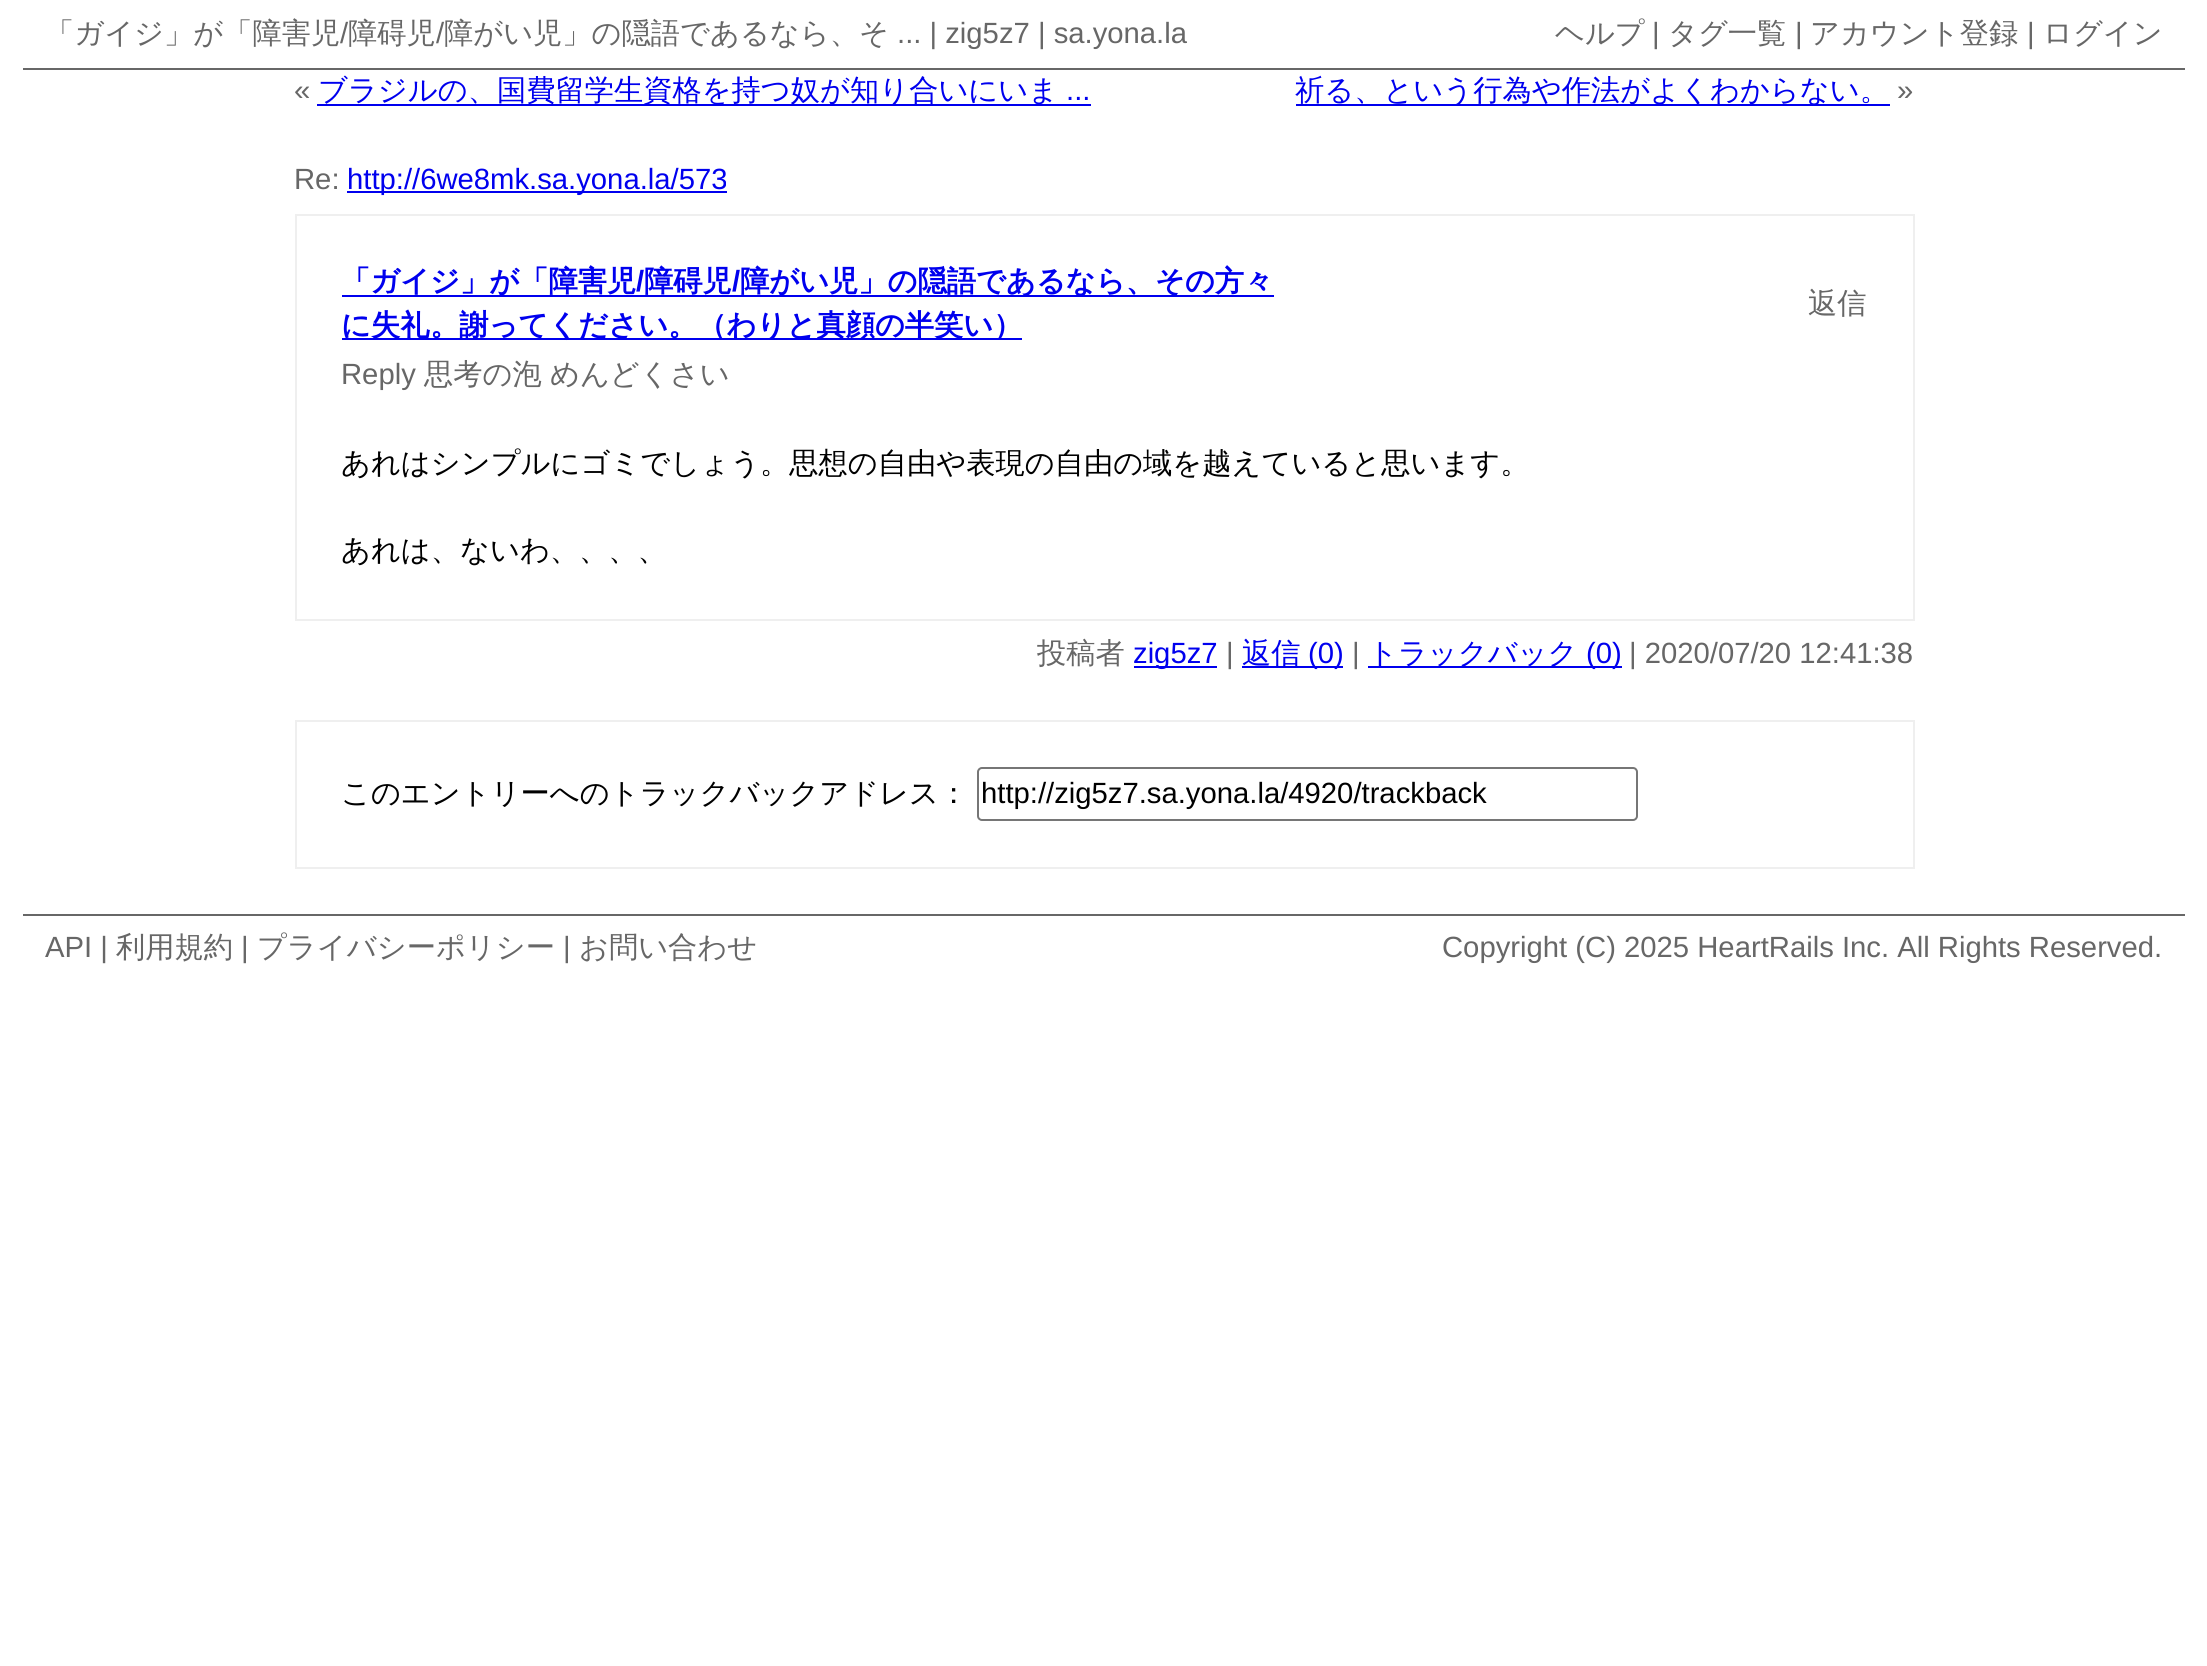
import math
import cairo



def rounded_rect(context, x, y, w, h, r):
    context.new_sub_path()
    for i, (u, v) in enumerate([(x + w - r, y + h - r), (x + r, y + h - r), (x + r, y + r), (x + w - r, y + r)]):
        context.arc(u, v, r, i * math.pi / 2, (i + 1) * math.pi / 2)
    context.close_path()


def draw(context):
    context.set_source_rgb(1, 1, 1)
    context.paint()
    context.set_source_rgb(103 / 255, 103 / 255, 103 / 255)
    context.rectangle(23, 68, 2162, 2)
    context.fill()
    context.set_source_rgb(0, 0, 238 / 255)
    context.rectangle(317, 104, 774, 2)
    context.fill()
    context.rectangle(1296, 104, 594, 2)
    context.fill()
    context.rectangle(347, 191, 380, 2)
    context.fill()
    context.rectangle(296, 215, 1618, 405)
    context.set_source_rgb(239 / 255, 239 / 255, 239 / 255)
    context.stroke()
    context.set_source_rgb(0, 0, 238 / 255)
    context.rectangle(342, 295, 932, 2)
    context.fill()
    context.rectangle(342, 338, 680, 2)
    context.fill()
    context.rectangle(1134, 666, 83, 2)
    context.fill()
    context.rectangle(1242, 666, 101, 2)
    context.fill()
    context.rectangle(1368, 666, 254, 2)
    context.fill()
    context.rectangle(296, 721, 1618, 147)
    context.set_source_rgb(239 / 255, 239 / 255, 239 / 255)
    context.stroke()
    rounded_rect(context, 978, 768, 659, 52, 4)
    context.set_source_rgb(118 / 255, 118 / 255, 118 / 255)
    context.stroke()
    context.set_source_rgb(103 / 255, 103 / 255, 103 / 255)
    context.rectangle(23, 914, 2162, 2)
    context.fill()
    context.select_font_face("WenQuanYi Zen Hei Medium")
    context.set_font_size(29.25)
    context.move_to(45, 43)
    context.show_text("「ガイジ」が「障害児")
    context.select_font_face("Liberation Sans")
    context.move_to(340, 43)
    context.show_text("/")
    context.select_font_face("WenQuanYi Zen Hei Medium")
    context.move_to(348, 43)
    context.show_text("障碍児")
    context.select_font_face("Liberation Sans")
    context.move_to(436, 43)
    context.show_text("/")
    context.select_font_face("WenQuanYi Zen Hei Medium")
    context.move_to(444, 43)
    context.show_text("障がい児」の隠語であるなら、そ")
    context.select_font_face("Liberation Sans")
    context.move_to(897, 43)
    context.show_text("... | zig5z7 | sa.yona.la")
    context.select_font_face("WenQuanYi Zen Hei Medium")
    context.move_to(1555, 43)
    context.show_text("ヘルプ")
    context.select_font_face("Liberation Sans")
    context.move_to(1652, 43)
    context.show_text("|")
    context.select_font_face("WenQuanYi Zen Hei Medium")
    context.move_to(1668, 43)
    context.show_text("タグ一覧")
    context.select_font_face("Liberation Sans")
    context.move_to(1795, 43)
    context.show_text("|")
    context.select_font_face("WenQuanYi Zen Hei Medium")
    context.move_to(1810, 43)
    context.show_text("アカウント登録")
    context.select_font_face("Liberation Sans")
    context.move_to(2027, 43)
    context.show_text("|")
    context.select_font_face("WenQuanYi Zen Hei Medium")
    context.move_to(2043, 43)
    context.show_text("ログイン")
    context.select_font_face("Liberation Sans")
    context.move_to(294, 100)
    context.show_text("«")
    context.select_font_face("WenQuanYi Zen Hei Medium")
    context.set_source_rgb(0, 0, 238 / 255)
    context.move_to(318, 100)
    context.show_text("ブラジルの、国費留学生資格を持つ奴が知り合いにいま")
    context.select_font_face("Liberation Sans")
    context.move_to(1066, 100)
    context.show_text("...")
    context.select_font_face("WenQuanYi Zen Hei Medium")
    context.move_to(1295, 100)
    context.show_text("祈る、という行為や作法がよくわからない。")
    context.select_font_face("Liberation Sans")
    context.set_source_rgb(103 / 255, 103 / 255, 103 / 255)
    context.move_to(1897, 100)
    context.show_text("»")
    context.move_to(294, 189)
    context.show_text("Re:")
    context.set_source_rgb(0, 0, 238 / 255)
    context.move_to(347, 189)
    context.show_text("http://6we8mk.sa.yona.la/573")
    context.select_font_face("WenQuanYi Zen Hei", cairo.FontSlant.NORMAL, cairo.FontWeight.BOLD)
    context.move_to(341, 291)
    context.show_text("「ガイジ」が「障害児")
    context.select_font_face("Liberation Sans", cairo.FontSlant.NORMAL, cairo.FontWeight.BOLD)
    context.move_to(636, 291)
    context.show_text("/")
    context.select_font_face("WenQuanYi Zen Hei", cairo.FontSlant.NORMAL, cairo.FontWeight.BOLD)
    context.move_to(644, 291)
    context.show_text("障碍児")
    context.select_font_face("Liberation Sans", cairo.FontSlant.NORMAL, cairo.FontWeight.BOLD)
    context.move_to(732, 291)
    context.show_text("/")
    context.select_font_face("WenQuanYi Zen Hei", cairo.FontSlant.NORMAL, cairo.FontWeight.BOLD)
    context.move_to(740, 291)
    context.show_text("障がい児」の隠語であるなら、その方々")
    context.move_to(341, 335)
    context.show_text("に失礼")
    context.move_to(430, 335)
    context.show_text("。謝ってください。（わりと真顔の半笑い）")
    context.select_font_face("WenQuanYi Zen Hei Medium")
    context.set_source_rgb(103 / 255, 103 / 255, 103 / 255)
    context.move_to(1808, 313)
    context.show_text("返信")
    context.select_font_face("Liberation Sans")
    context.move_to(341, 384)
    context.show_text("Reply")
    context.select_font_face("WenQuanYi Zen Hei Medium")
    context.move_to(424, 384)
    context.show_text("思考の泡")
    context.move_to(550, 384)
    context.show_text("めんどくさい")
    context.set_source_rgb(0, 0, 0)
    context.move_to(341, 473)
    context.show_text("あれはシンプルにゴミでしょう。思想の自由や表現の自由の域を越えていると思います。")
    context.move_to(341, 560)
    context.show_text("あれは、ないわ、、、、")
    context.set_source_rgb(103 / 255, 103 / 255, 103 / 255)
    context.move_to(1037, 663)
    context.show_text("投稿者")
    context.select_font_face("Liberation Sans")
    context.set_source_rgb(0, 0, 238 / 255)
    context.move_to(1133, 663)
    context.show_text("zig5z7")
    context.set_source_rgb(103 / 255, 103 / 255, 103 / 255)
    context.move_to(1226, 663)
    context.show_text("|")
    context.select_font_face("WenQuanYi Zen Hei Medium")
    context.set_source_rgb(0, 0, 238 / 255)
    context.move_to(1242, 663)
    context.show_text("返信")
    context.select_font_face("Liberation Sans")
    context.move_to(1308, 663)
    context.show_text("(0)")
    context.set_source_rgb(103 / 255, 103 / 255, 103 / 255)
    context.move_to(1352, 663)
    context.show_text("|")
    context.select_font_face("WenQuanYi Zen Hei Medium")
    context.set_source_rgb(0, 0, 238 / 255)
    context.move_to(1368, 663)
    context.show_text("トラックバック")
    context.select_font_face("Liberation Sans")
    context.move_to(1586, 663)
    context.show_text("(0)")
    context.set_source_rgb(103 / 255, 103 / 255, 103 / 255)
    context.move_to(1629, 663)
    context.show_text("| 2020/07/20 12:41:38")
    context.select_font_face("WenQuanYi Zen Hei Medium")
    context.set_source_rgb(0, 0, 0)
    context.move_to(341, 803)
    context.show_text("このエントリーへのトラックバックアドレス：")
    context.select_font_face("Liberation Sans")
    context.move_to(981, 803)
    context.show_text("http://zig5z7.sa.yona.la/4920/trackback")
    context.set_source_rgb(103 / 255, 103 / 255, 103 / 255)
    context.move_to(45, 957)
    context.show_text("API |")
    context.select_font_face("WenQuanYi Zen Hei Medium")
    context.move_to(116, 957)
    context.show_text("利用規約")
    context.select_font_face("Liberation Sans")
    context.move_to(241, 957)
    context.show_text("|")
    context.select_font_face("WenQuanYi Zen Hei Medium")
    context.move_to(257, 957)
    context.show_text("プライバシーポリシー")
    context.select_font_face("Liberation Sans")
    context.move_to(563, 957)
    context.show_text("|")
    context.select_font_face("WenQuanYi Zen Hei Medium")
    context.move_to(579, 957)
    context.show_text("お問い合わせ")
    context.select_font_face("Liberation Sans")
    context.move_to(1442, 957)
    context.show_text("Copyright (C) 2025 HeartRails Inc. All Rights Reserved.")


surface = cairo.ImageSurface(cairo.Format.RGB24, 2207, 1666)
context = cairo.Context(surface)
options = cairo.FontOptions()
options.set_hint_metrics(cairo.HintMetrics.OFF)
options.set_hint_style(cairo.HintStyle.NONE)
context.set_font_options(options)
context.set_miter_limit(4)
draw(context)
surface.write_to_png("out.png")
